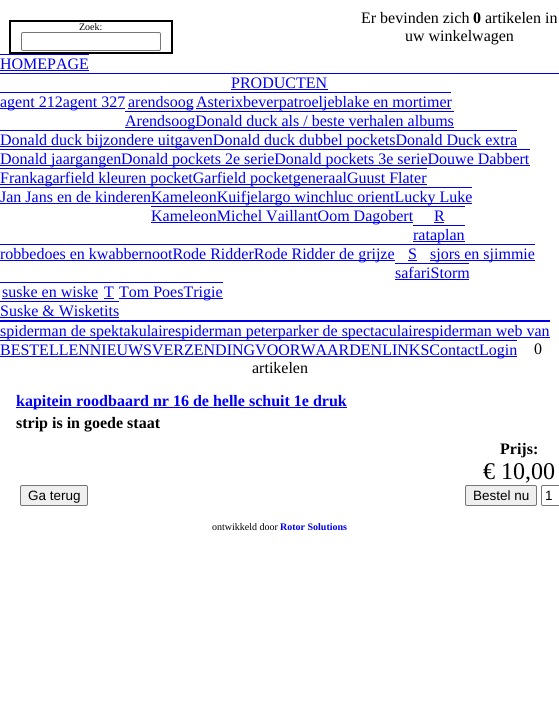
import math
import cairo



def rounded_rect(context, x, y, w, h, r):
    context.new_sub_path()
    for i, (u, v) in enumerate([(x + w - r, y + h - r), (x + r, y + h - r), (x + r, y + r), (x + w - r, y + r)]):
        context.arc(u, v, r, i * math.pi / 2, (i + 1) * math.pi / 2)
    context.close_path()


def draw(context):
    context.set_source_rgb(1, 1, 1)
    context.paint()
    context.rectangle(10, 21, 162, 32)
    context.set_source_rgb(0, 0, 0)
    context.stroke()
    rounded_rect(context, 21.5, 32.5, 139, 18, 1.5)
    context.set_source_rgb(118 / 255, 118 / 255, 118 / 255)
    context.set_line_width(1)
    context.stroke()
    context.set_source_rgb(0, 0, 238 / 255)
    context.rectangle(0, 54, 89, 1)
    context.fill()
    context.rectangle(0, 70, 89, 1)
    context.fill()
    context.rectangle(0, 73, 559, 1)
    context.fill()
    context.rectangle(231, 89, 97, 1)
    context.fill()
    context.rectangle(128, 108, 65, 1)
    context.fill()
    context.rectangle(125, 111, 329, 1)
    context.fill()
    context.rectangle(125, 127, 329, 1)
    context.fill()
    context.rectangle(0, 92, 451, 1)
    context.fill()
    context.rectangle(0, 108, 125, 1)
    context.fill()
    context.rectangle(196, 108, 255, 1)
    context.fill()
    context.rectangle(0, 130, 517, 1)
    context.fill()
    context.rectangle(0, 146, 517, 1)
    context.fill()
    context.rectangle(0, 149, 530, 1)
    context.fill()
    context.rectangle(0, 165, 121, 1)
    context.fill()
    context.rectangle(121, 165, 409, 1)
    context.fill()
    context.rectangle(0, 168, 427, 1)
    context.fill()
    context.rectangle(0, 184, 427, 1)
    context.fill()
    context.rectangle(0, 187, 472, 1)
    context.fill()
    context.rectangle(0, 203, 472, 1)
    context.fill()
    context.rectangle(151, 206, 314, 1)
    context.fill()
    context.rectangle(151, 222, 262, 1)
    context.fill()
    context.rectangle(434, 222, 10, 1)
    context.fill()
    context.rectangle(413, 225, 52, 1)
    context.fill()
    context.rectangle(413, 241, 52, 1)
    context.fill()
    context.rectangle(0, 244, 535, 1)
    context.fill()
    context.rectangle(0, 260, 395, 1)
    context.fill()
    context.rectangle(408, 260, 9, 1)
    context.fill()
    context.rectangle(395, 263, 74, 1)
    context.fill()
    context.rectangle(395, 279, 74, 1)
    context.fill()
    context.rectangle(430, 260, 105, 1)
    context.fill()
    context.rectangle(0, 282, 223, 1)
    context.fill()
    context.rectangle(2, 298, 96, 1)
    context.fill()
    context.rectangle(0, 301, 119, 1)
    context.fill()
    context.rectangle(0, 317, 119, 1)
    context.fill()
    context.rectangle(104, 298, 10, 1)
    context.fill()
    context.rectangle(119, 298, 104, 1)
    context.fill()
    context.rectangle(0, 320, 550, 1)
    context.fill()
    context.rectangle(0, 321, 550, 1)
    context.fill()
    context.rectangle(0, 337, 550, 1)
    context.fill()
    context.rectangle(0, 340, 517, 1)
    context.fill()
    context.rectangle(0, 356, 517, 1)
    context.fill()
    context.rectangle(16, 407, 331, 1)
    context.fill()
    context.set_source_rgb(239 / 255, 239 / 255, 239 / 255)
    rounded_rect(context, 20.5, 485.5, 67, 20, 1.5)
    context.fill_preserve()
    context.set_source_rgb(118 / 255, 118 / 255, 118 / 255)
    context.stroke()
    context.set_source_rgb(239 / 255, 239 / 255, 239 / 255)
    rounded_rect(context, 465.5, 485.5, 71, 20, 1.5)
    context.fill_preserve()
    context.set_source_rgb(118 / 255, 118 / 255, 118 / 255)
    context.stroke()
    rounded_rect(context, 541.5, 485.5, 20, 20, 1.5)
    context.stroke()
    context.select_font_face("Liberation Serif")
    context.set_font_size(10)
    context.set_source_rgb(0, 0, 0)
    context.move_to(79, 30)
    context.show_text("Zoek:")
    context.set_font_size(16)
    context.move_to(361, 23)
    context.show_text("Er bevinden zich")
    context.select_font_face("Liberation Serif", cairo.FontSlant.NORMAL, cairo.FontWeight.BOLD)
    context.move_to(473, 23)
    context.show_text("0")
    context.select_font_face("Liberation Serif")
    context.move_to(485, 23)
    context.show_text("artikelen in")
    context.move_to(405, 41)
    context.show_text("uw winkelwagen")
    context.set_source_rgb(0, 0, 238 / 255)
    context.move_to(0, 69)
    context.show_text("HOMEPAGE")
    context.move_to(231, 88)
    context.show_text("PRODUCTEN")
    context.move_to(128, 107)
    context.show_text("arendsoog")
    context.move_to(125, 126)
    context.show_text("ArendsoogDonald duck als / beste verhalen albums")
    context.move_to(0, 107)
    context.show_text("agent 212agent 327")
    context.move_to(196, 107)
    context.show_text("Asterixbeverpatroeljeblake en mortimer")
    context.move_to(0, 145)
    context.show_text("Donald duck bijzondere uitgavenDonald duck dubbel pocketsDonald Duck extra")
    context.move_to(0, 164)
    context.show_text("Donald jaargangen")
    context.move_to(121, 164)
    context.show_text("Donald pockets 2e serieDonald pockets 3e serieDouwe Dabbert")
    context.move_to(0, 183)
    context.show_text("Frankagarfield kleuren pocketGarfield pocketgeneraalGuust Flater")
    context.move_to(0, 202)
    context.show_text("Jan Jans en de kinderenKameleonKuifjelargo winchluc orientLucky Luke")
    context.move_to(151, 221)
    context.show_text("KameleonMichel VaillantOom Dagobert")
    context.move_to(434, 221)
    context.show_text("R")
    context.move_to(413, 240)
    context.show_text("rataplan")
    context.move_to(0, 259)
    context.show_text("robbedoes en kwabbernootRode RidderRode Ridder de grijze")
    context.move_to(408, 259)
    context.show_text("S")
    context.move_to(395, 278)
    context.show_text("safariStorm")
    context.move_to(430, 259)
    context.show_text("sjors en sjimmie")
    context.move_to(2, 297)
    context.show_text("suske en wiske")
    context.move_to(0, 316)
    context.show_text("Suske & Wisketits")
    context.move_to(104, 297)
    context.show_text("T")
    context.move_to(119, 297)
    context.show_text("Tom PoesTrigie")
    context.move_to(0, 336)
    context.show_text("spiderman de spektakulairespiderman peterparker de spectaculairespiderman web van")
    context.move_to(0, 355)
    context.show_text("BESTELLENNIEUWSVERZENDINGVOORWAARDENLINKSContactLogin")
    context.set_source_rgb(0, 0, 0)
    context.move_to(534, 354)
    context.show_text("0")
    context.move_to(252, 373)
    context.show_text("artikelen")
    context.select_font_face("Liberation Serif", cairo.FontSlant.NORMAL, cairo.FontWeight.BOLD)
    context.set_source_rgb(0, 0, 238 / 255)
    context.move_to(16, 406)
    context.show_text("kapitein roodbaard nr 16 de helle schuit 1e druk")
    context.set_source_rgb(0, 0, 0)
    context.move_to(16, 428)
    context.show_text("strip is in goede staat")
    context.select_font_face("Liberation Sans")
    context.set_font_size(13.5)
    context.move_to(28, 500)
    context.show_text("Ga terug")
    context.select_font_face("Liberation Serif", cairo.FontSlant.NORMAL, cairo.FontWeight.BOLD)
    context.set_font_size(16)
    context.move_to(500, 454)
    context.show_text("Prijs:")
    context.select_font_face("Liberation Serif")
    context.set_font_size(24)
    context.move_to(483, 479)
    context.show_text("€ 10,00")
    context.select_font_face("Liberation Sans")
    context.set_font_size(13.5)
    context.move_to(473, 500)
    context.show_text("Bestel nu")
    context.move_to(545, 500)
    context.show_text("1")
    context.select_font_face("Liberation Serif")
    context.set_font_size(10)
    context.move_to(212, 530)
    context.show_text("ontwikkeld door")
    context.select_font_face("Liberation Serif", cairo.FontSlant.NORMAL, cairo.FontWeight.BOLD)
    context.set_source_rgb(0, 0, 238 / 255)
    context.move_to(280, 530)
    context.show_text("Rotor Solutions")


surface = cairo.ImageSurface(cairo.Format.RGB24, 559, 725)
context = cairo.Context(surface)
options = cairo.FontOptions()
options.set_hint_metrics(cairo.HintMetrics.OFF)
options.set_hint_style(cairo.HintStyle.NONE)
context.set_font_options(options)
context.set_miter_limit(4)
draw(context)
surface.write_to_png("out.png")
